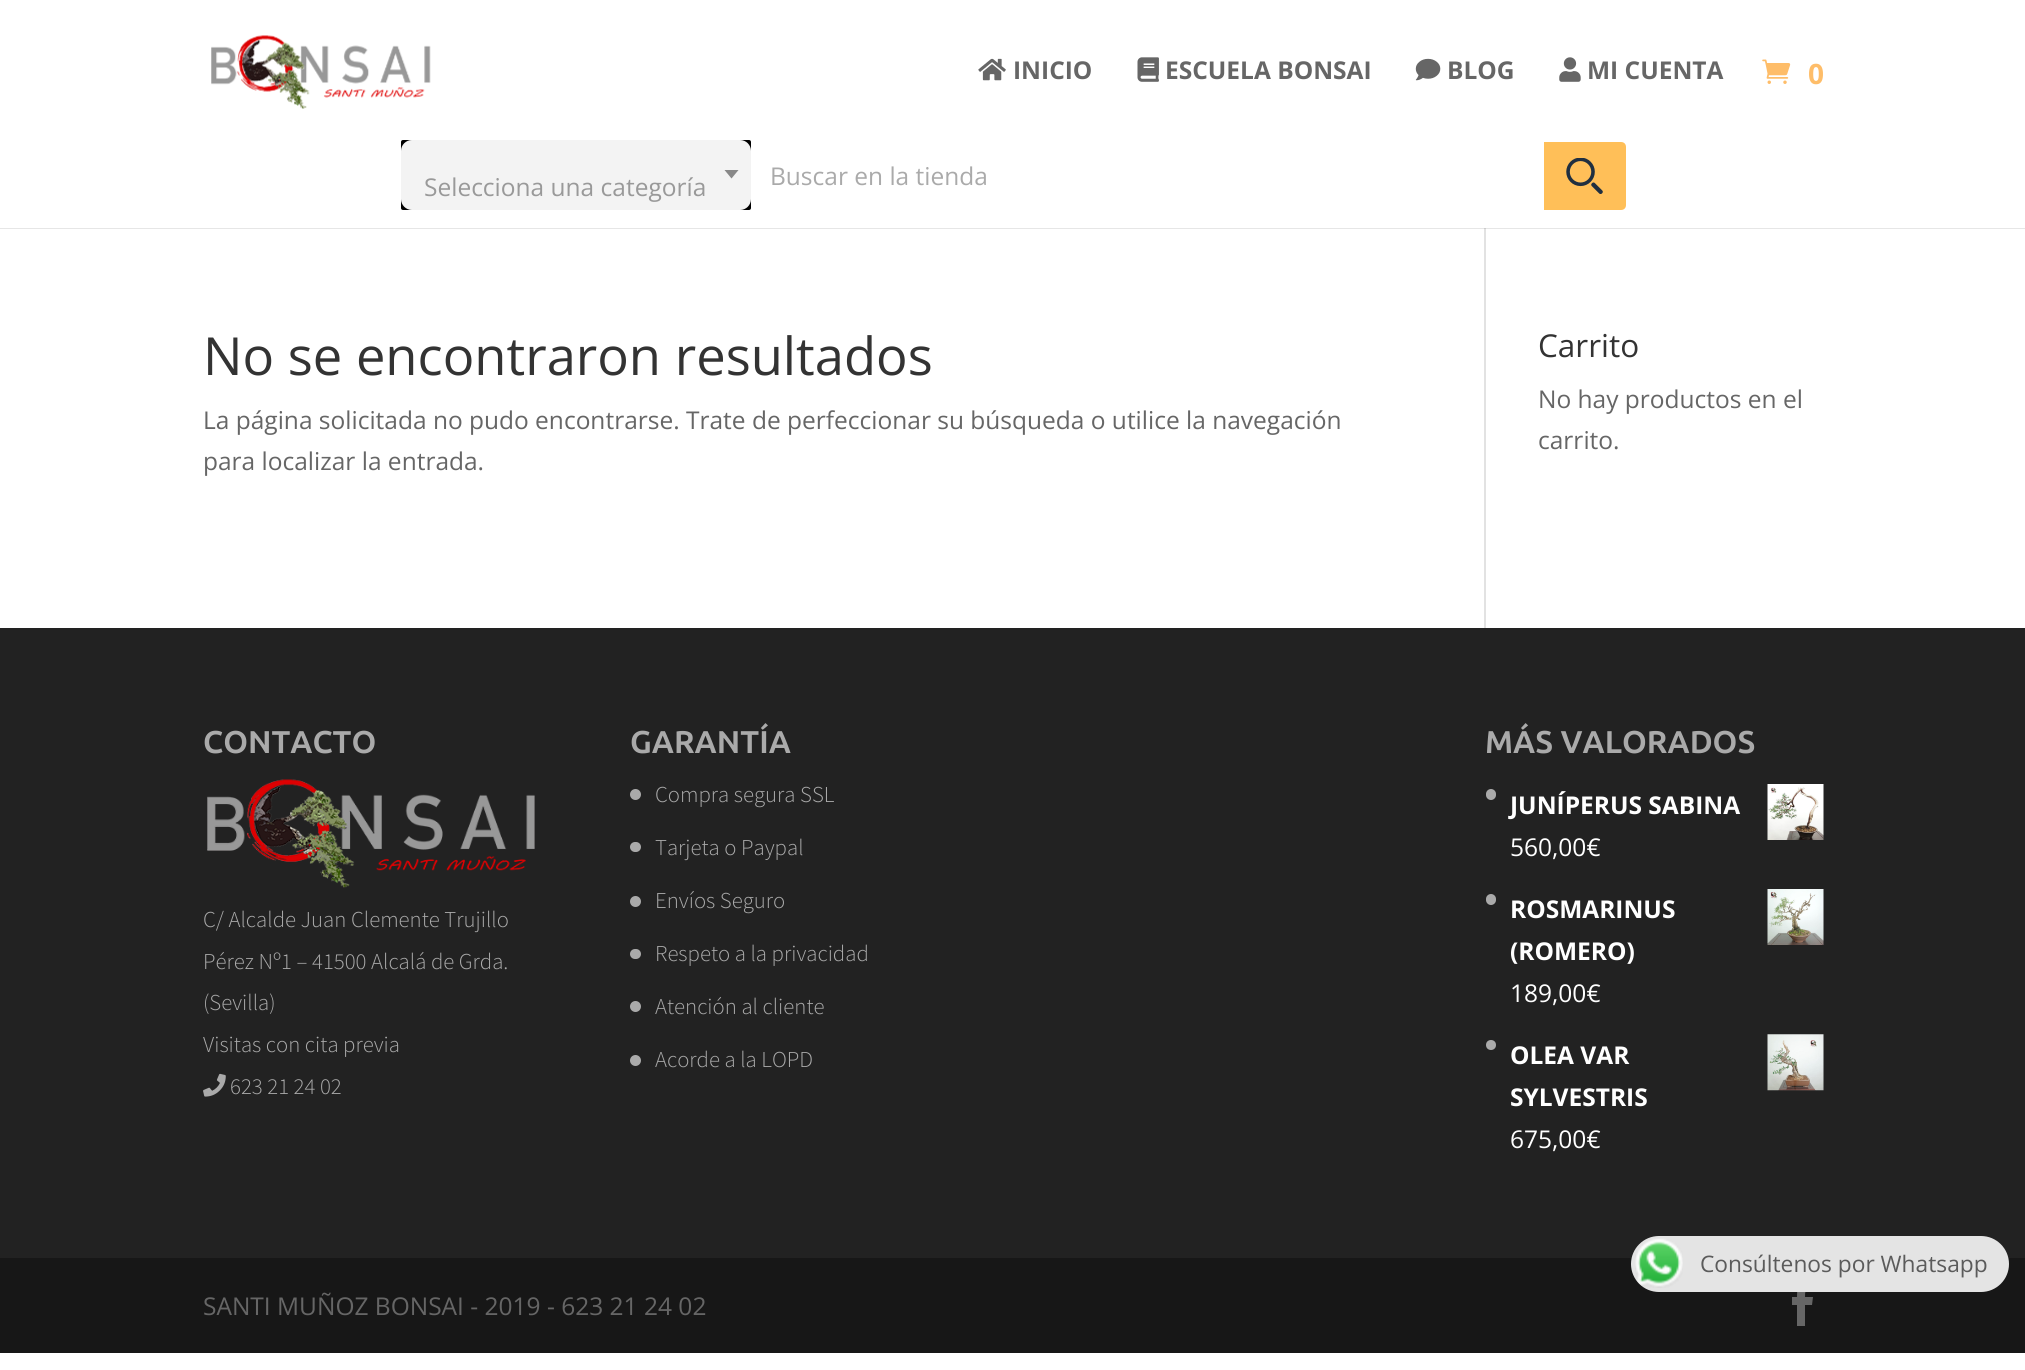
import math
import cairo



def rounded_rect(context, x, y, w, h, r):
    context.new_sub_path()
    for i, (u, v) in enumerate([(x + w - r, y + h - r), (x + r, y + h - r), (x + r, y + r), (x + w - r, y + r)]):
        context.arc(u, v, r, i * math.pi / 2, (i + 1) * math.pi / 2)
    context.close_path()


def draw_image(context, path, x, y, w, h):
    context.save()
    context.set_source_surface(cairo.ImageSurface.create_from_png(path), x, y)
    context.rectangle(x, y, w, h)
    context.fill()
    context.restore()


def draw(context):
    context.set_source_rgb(1, 1, 1)
    context.paint()
    context.set_source_rgb(226 / 255, 226 / 255, 226 / 255)
    context.rectangle(1484, 228, 2, 400)
    context.fill()
    context.set_source_rgba(0, 0, 0, 0.1)
    context.new_path()
    context.move_to(0, 228)
    context.line_to(0, 229)
    context.line_to(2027, 229)
    context.line_to(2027, 2)
    context.line_to(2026, 2)
    context.line_to(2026, 228)
    context.close_path()
    context.fill()
    draw_image(context, "images/1.png", 211, 35, 220, 74)
    draw_image(context, "images/2.png", 978, 58, 28, 23)
    draw_image(context, "images/3.png", 1137, 57, 22, 25)
    draw_image(context, "images/4.png", 1415, 58, 26, 23)
    draw_image(context, "images/5.png", 1559, 57, 22, 25)
    draw_image(context, "images/6.png", 1762, 59, 29, 25)
    context.set_source_rgb(243 / 255, 243 / 255, 243 / 255)
    context.rectangle(401, 140, 350, 70)
    context.fill()
    context.set_source_rgb(0, 0, 0)
    rounded_rect(context, 401, 140, 350, 70, 2)
    context.fill()
    context.set_source_rgb(243 / 255, 243 / 255, 243 / 255)
    rounded_rect(context, 401, 140, 350, 70, 11)
    context.fill()
    context.set_source_rgb(136 / 255, 136 / 255, 136 / 255)
    context.new_path()
    context.move_to(724.5, 170)
    context.line_to(738.5, 170)
    context.line_to(731.5, 178.5)
    context.close_path()
    context.fill()
    context.set_source_rgb(1, 191 / 255, 88 / 255)
    context.new_path()
    context.move_to(1544, 142)
    context.line_to(1621, 142)
    context.curve_to(1624, 142, 1626, 144, 1626, 147)
    context.line_to(1626, 205)
    context.curve_to(1626, 208, 1624, 210, 1621, 210)
    context.line_to(1544, 210)
    context.close_path()
    context.fill()
    draw_image(context, "images/7.png", 1566, 158, 37, 36)
    context.set_source_rgb(34 / 255, 34 / 255, 34 / 255)
    context.rectangle(0, 628, 2025, 630)
    context.fill()
    draw_image(context, "images/8.png", 207, 779, 328, 109)
    draw_image(context, "images/9.png", 203, 1073, 23, 24)
    context.set_source_rgb(170 / 255, 170 / 255, 170 / 255)
    context.arc(635.5, 794.5, 5.5, 0, 2 * math.pi)
    context.fill()
    rounded_rect(context, 630, 842, 11, 10, 5)
    context.fill()
    context.arc(635.5, 901.5, 5.5, 0, 2 * math.pi)
    context.fill()
    rounded_rect(context, 630, 949, 11, 10, 5)
    context.fill()
    context.arc(635.5, 1006.5, 5.5, 0, 2 * math.pi)
    context.fill()
    context.arc(635.5, 1060.5, 5.5, 0, 2 * math.pi)
    context.fill()
    rounded_rect(context, 1486, 789, 10, 11, 5)
    context.fill()
    draw_image(context, "images/10.png", 1767, 784, 57, 56)
    rounded_rect(context, 1486, 894, 10, 11, 5)
    context.fill()
    draw_image(context, "images/11.png", 1767, 889, 57, 56)
    context.arc(1491, 1045, 5, 0, 2 * math.pi)
    context.fill()
    draw_image(context, "images/12.png", 1767, 1034, 57, 57)
    context.set_source_rgb(23 / 255, 23 / 255, 23 / 255)
    context.rectangle(0, 1258, 2025, 95)
    context.fill()
    context.set_source_rgb(102 / 255, 102 / 255, 102 / 255)
    context.new_path()
    context.move_to(1797, 1326)
    context.line_to(1805, 1326)
    context.line_to(1805, 1305)
    context.line_to(1812, 1305)
    context.line_to(1813, 1297)
    context.line_to(1805, 1297)
    context.curve_to(1805, 1290, 1805, 1291, 1813, 1291)
    context.line_to(1813, 1284)
    context.curve_to(1800, 1284, 1797, 1283, 1797, 1297)
    context.line_to(1792, 1297)
    context.line_to(1792, 1305)
    context.line_to(1797, 1305)
    context.close_path()
    context.fill()
    context.set_source_rgb(228 / 255, 228 / 255, 228 / 255)
    rounded_rect(context, 1631, 1236, 378, 56, 28)
    context.fill()
    draw_image(context, "images/13.png", 1635, 1238, 48, 50)
    context.select_font_face("Open Sans", cairo.FontSlant.NORMAL, cairo.FontWeight.BOLD)
    context.set_font_size(24.5)
    context.set_source_rgb(102 / 255, 102 / 255, 102 / 255)
    context.move_to(1013, 79)
    context.show_text("INICIO")
    context.move_to(1165, 79)
    context.show_text("ESCUELA BONSAI")
    context.move_to(1447, 79)
    context.show_text("BLOG")
    context.move_to(1587, 79)
    context.show_text("MI CUENTA")
    context.set_font_size(28)
    context.set_source_rgb(254 / 255, 189 / 255, 105 / 255)
    context.move_to(1808, 84)
    context.show_text("0")
    context.select_font_face("Open Sans")
    context.set_font_size(24.5)
    context.set_source_rgb(153 / 255, 153 / 255, 153 / 255)
    context.move_to(424, 196)
    context.show_text("Selecciona una categoría")
    context.set_source_rgb(170 / 255, 170 / 255, 170 / 255)
    context.move_to(770, 185)
    context.show_text("Buscar en la tienda")
    context.set_font_size(52.5)
    context.set_source_rgb(51 / 255, 51 / 255, 51 / 255)
    context.move_to(203, 375)
    context.show_text("No se encontraron resultados")
    context.set_font_size(24.5)
    context.set_source_rgb(102 / 255, 102 / 255, 102 / 255)
    context.move_to(203, 429)
    context.show_text("La página solicitada no pudo encontrarse. Trate de perfeccionar su búsqueda o utilice la navegación")
    context.move_to(203, 470)
    context.show_text("para localizar la entrada.")
    context.set_font_size(31.5)
    context.set_source_rgb(51 / 255, 51 / 255, 51 / 255)
    context.move_to(1538, 357)
    context.show_text("Carrito")
    context.set_font_size(24.5)
    context.set_source_rgb(102 / 255, 102 / 255, 102 / 255)
    context.move_to(1538, 408)
    context.show_text("No hay productos en el")
    context.move_to(1538, 449)
    context.show_text("carrito.")
    context.select_font_face("Ubuntu", cairo.FontSlant.NORMAL, cairo.FontWeight.BOLD)
    context.set_font_size(31.5)
    context.set_source_rgb(170 / 255, 170 / 255, 170 / 255)
    context.move_to(203, 753)
    context.show_text("CONTACTO")
    context.select_font_face("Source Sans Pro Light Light")
    context.set_font_size(22.75)
    context.move_to(203, 927)
    context.show_text("C/ Alcalde Juan Clemente Trujillo")
    context.move_to(203, 969)
    context.show_text("Pérez Nº1 – 41500 Alcalá de Grda.")
    context.move_to(203, 1010)
    context.show_text("(Sevilla)")
    context.move_to(203, 1052)
    context.show_text("Visitas con cita previa")
    context.move_to(230, 1094)
    context.show_text("623 21 24 02")
    context.select_font_face("Ubuntu", cairo.FontSlant.NORMAL, cairo.FontWeight.BOLD)
    context.set_font_size(31.5)
    context.move_to(630, 753)
    context.show_text("GARANTÍA")
    context.select_font_face("Source Sans Pro Light Light")
    context.set_font_size(22.75)
    context.move_to(655, 802)
    context.show_text("Compra segura SSL")
    context.move_to(655, 855)
    context.show_text("Tarjeta o Paypal")
    context.move_to(655, 908)
    context.show_text("Envíos Seguro")
    context.move_to(655, 961)
    context.show_text("Respeto a la privacidad")
    context.move_to(655, 1014)
    context.show_text("Atención al cliente")
    context.move_to(655, 1067)
    context.show_text("Acorde a la LOPD")
    context.select_font_face("Ubuntu", cairo.FontSlant.NORMAL, cairo.FontWeight.BOLD)
    context.set_font_size(31.5)
    context.move_to(1485, 753)
    context.show_text("MÁS VALORADOS")
    context.select_font_face("Open Sans", cairo.FontSlant.NORMAL, cairo.FontWeight.BOLD)
    context.set_font_size(24.5)
    context.set_source_rgb(1, 1, 1)
    context.move_to(1510, 814)
    context.show_text("JUNÍPERUS SABINA")
    context.select_font_face("Open Sans")
    context.move_to(1510, 856)
    context.show_text("560,00€")
    context.select_font_face("Open Sans", cairo.FontSlant.NORMAL, cairo.FontWeight.BOLD)
    context.move_to(1510, 918)
    context.show_text("ROSMARINUS")
    context.move_to(1510, 960)
    context.show_text("(ROMERO)")
    context.select_font_face("Open Sans")
    context.move_to(1510, 1002)
    context.show_text("189,00€")
    context.select_font_face("Open Sans", cairo.FontSlant.NORMAL, cairo.FontWeight.BOLD)
    context.move_to(1510, 1064)
    context.show_text("OLEA VAR")
    context.move_to(1510, 1106)
    context.show_text("SYLVESTRIS")
    context.select_font_face("Open Sans")
    context.move_to(1510, 1148)
    context.show_text("675,00€")
    context.set_source_rgb(102 / 255, 102 / 255, 102 / 255)
    context.move_to(203, 1315)
    context.show_text("SANTI MUÑOZ BONSAI - 2019 - 623 21 24 02")
    context.set_font_size(22.75)
    context.set_source_rgb(91 / 255, 91 / 255, 91 / 255)
    context.move_to(1700, 1272)
    context.show_text("Consúltenos por Whatsapp")


surface = cairo.ImageSurface(cairo.Format.RGB24, 2025, 1370)
context = cairo.Context(surface)
options = cairo.FontOptions()
options.set_hint_metrics(cairo.HintMetrics.OFF)
options.set_hint_style(cairo.HintStyle.NONE)
context.set_font_options(options)
context.set_miter_limit(4)
draw(context)
surface.write_to_png("out.png")
